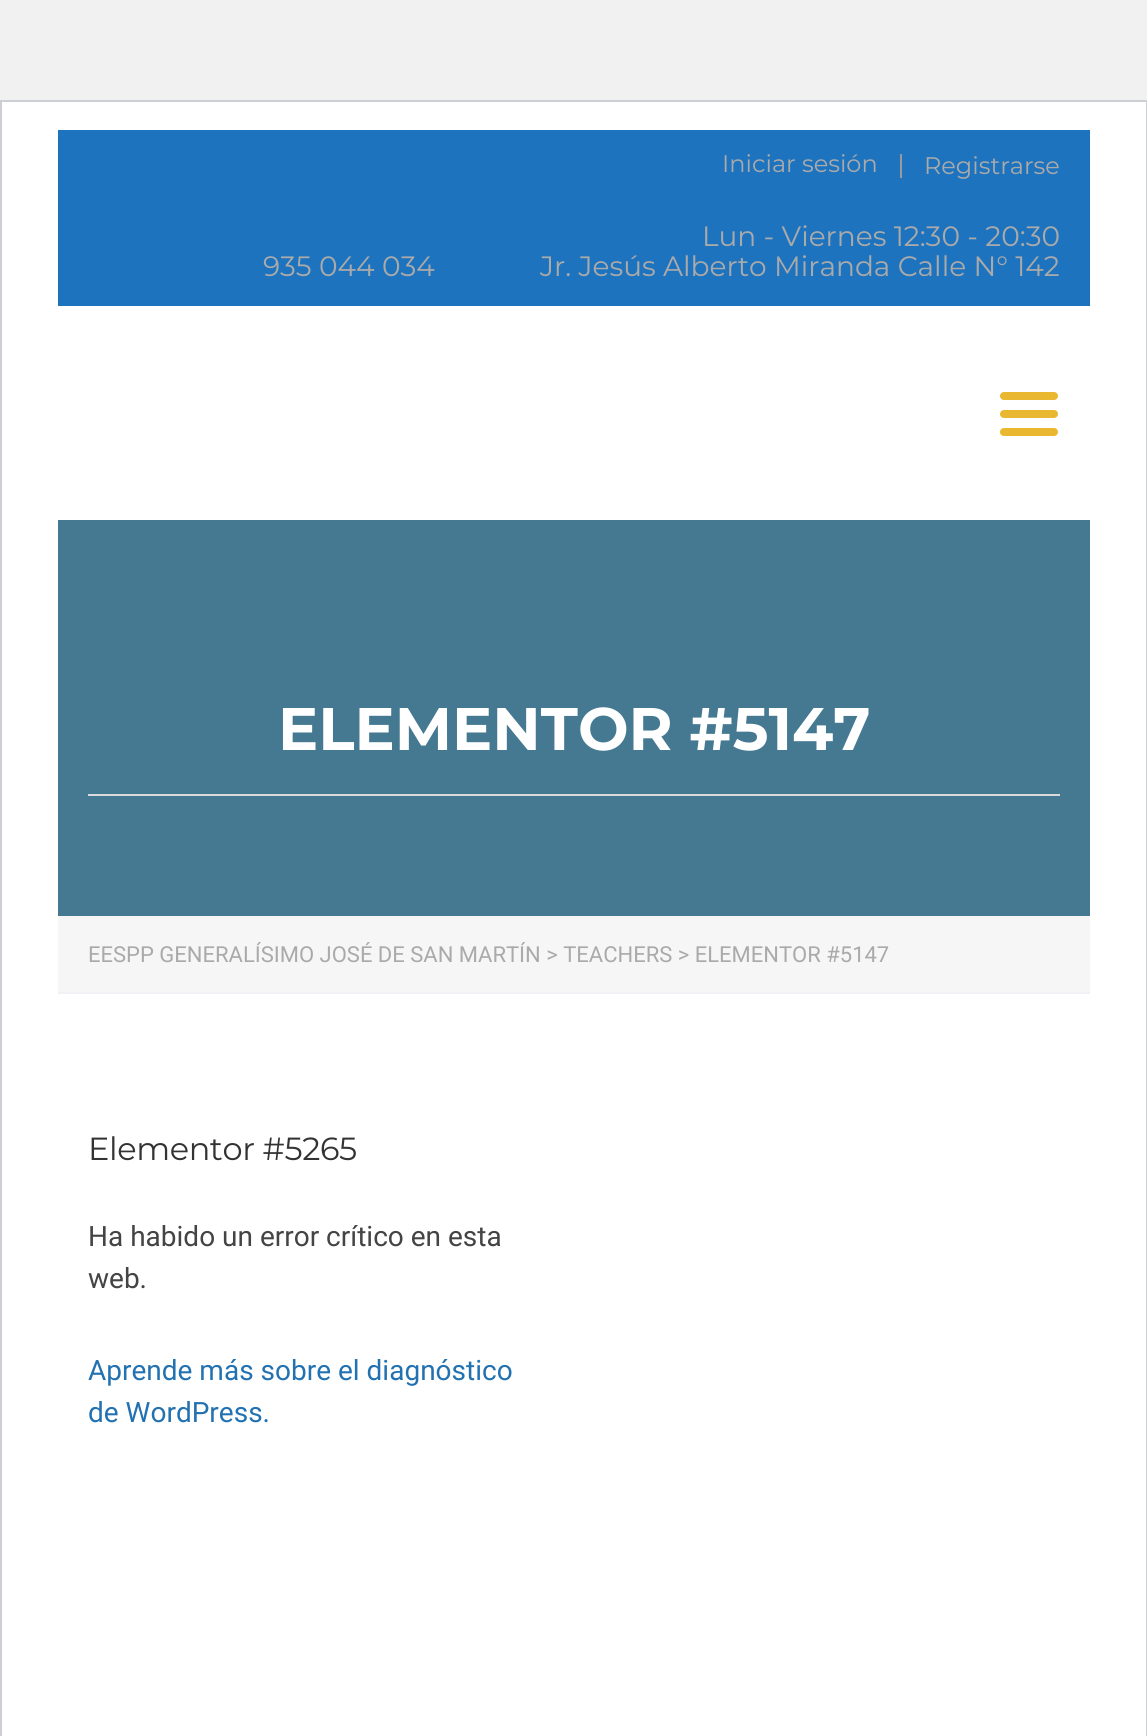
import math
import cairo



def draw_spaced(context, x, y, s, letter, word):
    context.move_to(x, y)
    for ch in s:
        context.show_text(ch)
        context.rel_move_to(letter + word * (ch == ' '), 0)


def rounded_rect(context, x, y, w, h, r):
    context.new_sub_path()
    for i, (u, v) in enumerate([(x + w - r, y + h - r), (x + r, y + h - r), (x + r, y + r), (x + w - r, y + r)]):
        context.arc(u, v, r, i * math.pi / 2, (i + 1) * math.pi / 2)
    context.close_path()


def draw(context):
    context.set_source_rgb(241 / 255, 241 / 255, 241 / 255)
    context.paint()
    context.set_source_rgb(1, 1, 1)
    context.rectangle(1, 101, 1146, 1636)
    context.fill_preserve()
    context.set_source_rgb(204 / 255, 208 / 255, 212 / 255)
    context.stroke()
    context.set_source_rgb(30 / 255, 115 / 255, 190 / 255)
    context.rectangle(58, 130, 1032, 176)
    context.fill()
    context.set_source_rgb(154 / 255, 154 / 255, 154 / 255)
    context.rectangle(900, 154, 2, 24)
    context.fill()
    context.set_source_rgb(234 / 255, 184 / 255, 48 / 255)
    rounded_rect(context, 1000, 392, 58, 8, 4)
    context.fill()
    rounded_rect(context, 1000, 410, 58, 8, 4)
    context.fill()
    rounded_rect(context, 1000, 428, 58, 8, 4)
    context.fill()
    context.set_source_rgb(69 / 255, 121 / 255, 146 / 255)
    context.rectangle(58, 520, 1032, 396)
    context.fill()
    context.set_source_rgb(218 / 255, 218 / 255, 218 / 255)
    context.rectangle(88, 794, 972, 2)
    context.fill()
    context.set_source_rgb(246 / 255, 246 / 255, 246 / 255)
    context.rectangle(58, 916, 1032, 76)
    context.fill()
    context.set_source_rgb(240 / 255, 242 / 255, 245 / 255)
    context.rectangle(58, 992, 1032, 2)
    context.fill()
    context.select_font_face("Montserrat")
    context.set_font_size(24)
    context.set_source_rgb(170 / 255, 170 / 255, 170 / 255)
    context.move_to(722, 172)
    context.show_text("Iniciar sesión")
    context.move_to(924, 174)
    context.show_text("Registrarse")
    context.set_font_size(28)
    context.move_to(702, 246)
    context.show_text("Lun - Viernes 12:30 - 20:30")
    context.move_to(263, 276)
    context.show_text("935 044 034")
    context.move_to(540, 276)
    context.show_text("Jr. Jesús Alberto Miranda Calle N° 142")
    context.select_font_face("Montserrat", cairo.FontSlant.NORMAL, cairo.FontWeight.BOLD)
    context.set_font_size(60)
    context.set_source_rgb(1, 1, 1)
    context.move_to(278, 750)
    context.show_text("ELEMENTOR #5147")
    context.select_font_face("Roboto")
    context.set_font_size(22)
    context.set_source_rgb(170 / 255, 170 / 255, 170 / 255)
    context.move_to(88, 962)
    context.show_text("EESPP GENERALÍSIMO JOSÉ DE SAN MARTÍN > TEACHERS > ELEMENTOR #5147")
    context.select_font_face("Montserrat")
    context.set_font_size(32)
    context.set_source_rgb(51 / 255, 51 / 255, 51 / 255)
    draw_spaced(context, 88, 1160, "Elementor #5265", -0.4, 0)
    context.select_font_face("Roboto")
    context.set_font_size(28)
    context.set_source_rgb(68 / 255, 68 / 255, 68 / 255)
    context.move_to(88, 1246)
    context.show_text("Ha habido un error crítico en esta")
    context.move_to(88, 1288)
    context.show_text("web.")
    context.set_source_rgb(34 / 255, 113 / 255, 177 / 255)
    context.move_to(88, 1380)
    context.show_text("Aprende más sobre el diagnóstico")
    context.move_to(88, 1422)
    context.show_text("de WordPress.")


surface = cairo.ImageSurface(cairo.Format.RGB24, 1147, 1736)
context = cairo.Context(surface)
options = cairo.FontOptions()
options.set_hint_metrics(cairo.HintMetrics.OFF)
options.set_hint_style(cairo.HintStyle.NONE)
context.set_font_options(options)
context.set_miter_limit(4)
draw(context)
surface.write_to_png("out.png")
